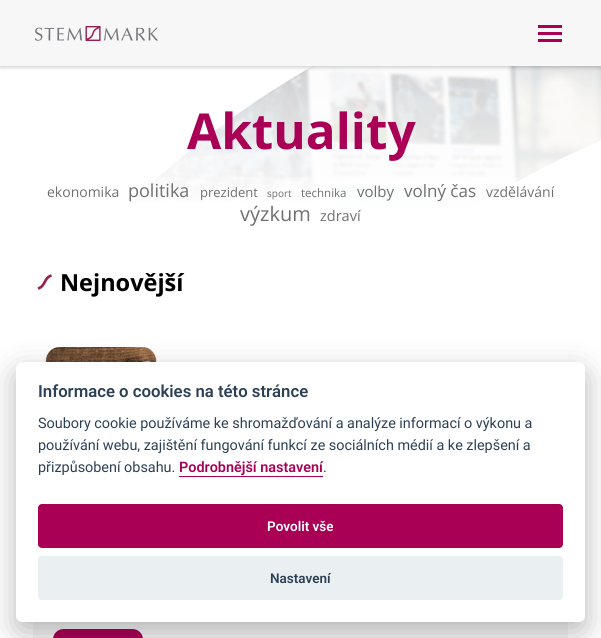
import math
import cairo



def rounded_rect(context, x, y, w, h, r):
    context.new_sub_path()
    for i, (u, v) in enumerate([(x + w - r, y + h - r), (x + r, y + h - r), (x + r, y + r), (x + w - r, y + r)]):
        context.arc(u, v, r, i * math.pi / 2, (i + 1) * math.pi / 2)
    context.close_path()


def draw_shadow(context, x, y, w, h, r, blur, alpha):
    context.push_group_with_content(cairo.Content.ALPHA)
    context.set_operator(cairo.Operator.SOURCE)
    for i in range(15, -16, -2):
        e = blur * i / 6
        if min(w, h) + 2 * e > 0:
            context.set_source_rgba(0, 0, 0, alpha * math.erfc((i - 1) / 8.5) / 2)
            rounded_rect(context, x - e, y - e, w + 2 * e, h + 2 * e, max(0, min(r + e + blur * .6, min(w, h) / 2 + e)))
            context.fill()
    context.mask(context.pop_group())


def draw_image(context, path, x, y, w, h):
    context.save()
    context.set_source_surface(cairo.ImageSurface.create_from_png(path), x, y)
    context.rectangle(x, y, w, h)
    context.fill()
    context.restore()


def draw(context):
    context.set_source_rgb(1, 1, 1)
    context.paint()
    draw_image(context, "images/2.png", 133, 66, 468, 142)
    context.set_source_rgb(0, 0, 0)
    draw_shadow(context, 0, 2, 601, 66, 0, 1.5, 0.16)
    context.set_source_rgb(247 / 255, 247 / 255, 247 / 255)
    context.rectangle(0, 0, 601, 66)
    context.fill()
    draw_image(context, "images/1.png", 35, 26, 123, 15)
    context.set_source_rgb(169 / 255, 0, 86 / 255)
    context.rectangle(538, 32, 24, 3)
    context.fill()
    context.rectangle(538, 25, 24, 3)
    context.fill()
    context.rectangle(538, 39, 24, 3)
    context.fill()
    gradient = cairo.LinearGradient(301, 231, 301, 165)
    gradient.add_color_stop_rgba(0, 1, 1, 1, 1)
    gradient.add_color_stop_rgba(1, 1, 1, 1, 0)
    context.set_source(gradient)
    context.rectangle(133, 177, 388, 31)
    context.fill()
    context.new_path()
    context.move_to(51.5, 275.5)
    context.curve_to(44, 277.5, 45.5, 286.5, 38, 288.5)
    context.set_source_rgb(149 / 255, 33 / 255, 84 / 255)
    context.set_line_width(2.7)
    context.stroke()
    context.set_source_rgb(0, 0, 0)
    draw_shadow(context, 46, 349, 110, 109, 14, 1.5, 0.16)
    draw_image(context, "images/3.png", 46, 347, 110, 15)
    context.set_source_rgb(246 / 255, 246 / 255, 246 / 255)
    context.rectangle(33, 622, 535, 16)
    context.fill()
    context.set_source_rgb(169 / 255, 0, 86 / 255)
    rounded_rect(context, 53, 629, 90, 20, 10.5)
    context.fill()
    context.set_source_rgb(2 / 255, 2 / 255, 3 / 255)
    draw_shadow(context, 16, 372, 569, 260, 6, 15, 0.28)
    context.set_source_rgb(1, 1, 1)
    rounded_rect(context, 16, 362, 569, 260, 6)
    context.fill()
    context.set_source_rgb(169 / 255, 0, 86 / 255)
    context.rectangle(179, 476, 144, 1)
    context.fill()
    rounded_rect(context, 38, 504, 525, 44, 4)
    context.fill()
    context.set_source_rgb(234 / 255, 239 / 255, 242 / 255)
    rounded_rect(context, 38, 556, 525, 44, 4)
    context.fill()
    context.select_font_face("Open Sans", cairo.FontSlant.NORMAL, cairo.FontWeight.BOLD)
    context.set_font_size(49.5)
    context.set_source_rgb(169 / 255, 0, 86 / 255)
    context.move_to(187, 149)
    context.show_text("Aktuality")
    context.select_font_face("Open Sans")
    context.set_font_size(14)
    context.set_source_rgb(112 / 255, 112 / 255, 112 / 255)
    context.move_to(47, 197)
    context.show_text("ekonomika")
    context.set_font_size(18)
    context.move_to(128, 197)
    context.show_text("politika")
    context.set_font_size(13)
    context.move_to(200, 197)
    context.show_text("prezident")
    context.set_font_size(10)
    context.move_to(267, 197)
    context.show_text("sport")
    context.set_font_size(11.5)
    context.move_to(301, 197)
    context.show_text("technika")
    context.set_font_size(15)
    context.move_to(357, 197)
    context.show_text("volby")
    context.set_font_size(17)
    context.move_to(404, 197)
    context.show_text("volný čas")
    context.set_font_size(14)
    context.move_to(486, 197)
    context.show_text("vzdělávání")
    context.set_font_size(20)
    context.move_to(240, 221)
    context.show_text("výzkum")
    context.set_font_size(14.5)
    context.move_to(320, 221)
    context.show_text("zdraví")
    context.select_font_face("Open Sans", cairo.FontSlant.NORMAL, cairo.FontWeight.BOLD)
    context.set_font_size(23.5)
    context.set_source_rgb(0, 0, 0)
    context.move_to(60, 291)
    context.show_text("Nejnovější")
    context.select_font_face("Roboto SemiBold")
    context.set_font_size(16.75)
    context.set_source_rgb(45 / 255, 65 / 255, 86 / 255)
    context.move_to(38, 397)
    context.show_text("Informace o cookies na této stránce")
    context.select_font_face("Roboto")
    context.set_font_size(14.4)
    context.move_to(38, 428)
    context.show_text("Soubory cookie používáme ke shromažďování a analýze informací o výkonu a")
    context.move_to(38, 450)
    context.show_text("používání webu, zajištění fungování funkcí ze sociálních médií a ke zlepšení a")
    context.move_to(38, 472)
    context.show_text("přizpůsobení obsahu.")
    context.select_font_face("Roboto SemiBold")
    context.set_source_rgb(169 / 255, 0, 86 / 255)
    context.move_to(179, 472)
    context.show_text("Podrobnější nastavení")
    context.select_font_face("Roboto")
    context.set_source_rgb(45 / 255, 65 / 255, 86 / 255)
    context.move_to(323, 472)
    context.show_text(".")
    context.select_font_face("Roboto SemiBold")
    context.set_font_size(13.5)
    context.set_source_rgb(1, 1, 1)
    context.move_to(267, 531)
    context.show_text("Povolit vše")
    context.set_source_rgb(45 / 255, 65 / 255, 86 / 255)
    context.move_to(270, 583)
    context.show_text("Nastavení")


surface = cairo.ImageSurface(cairo.Format.RGB24, 601, 638)
context = cairo.Context(surface)
options = cairo.FontOptions()
options.set_hint_metrics(cairo.HintMetrics.OFF)
options.set_hint_style(cairo.HintStyle.NONE)
context.set_font_options(options)
context.set_miter_limit(4)
draw(context)
surface.write_to_png("out.png")
